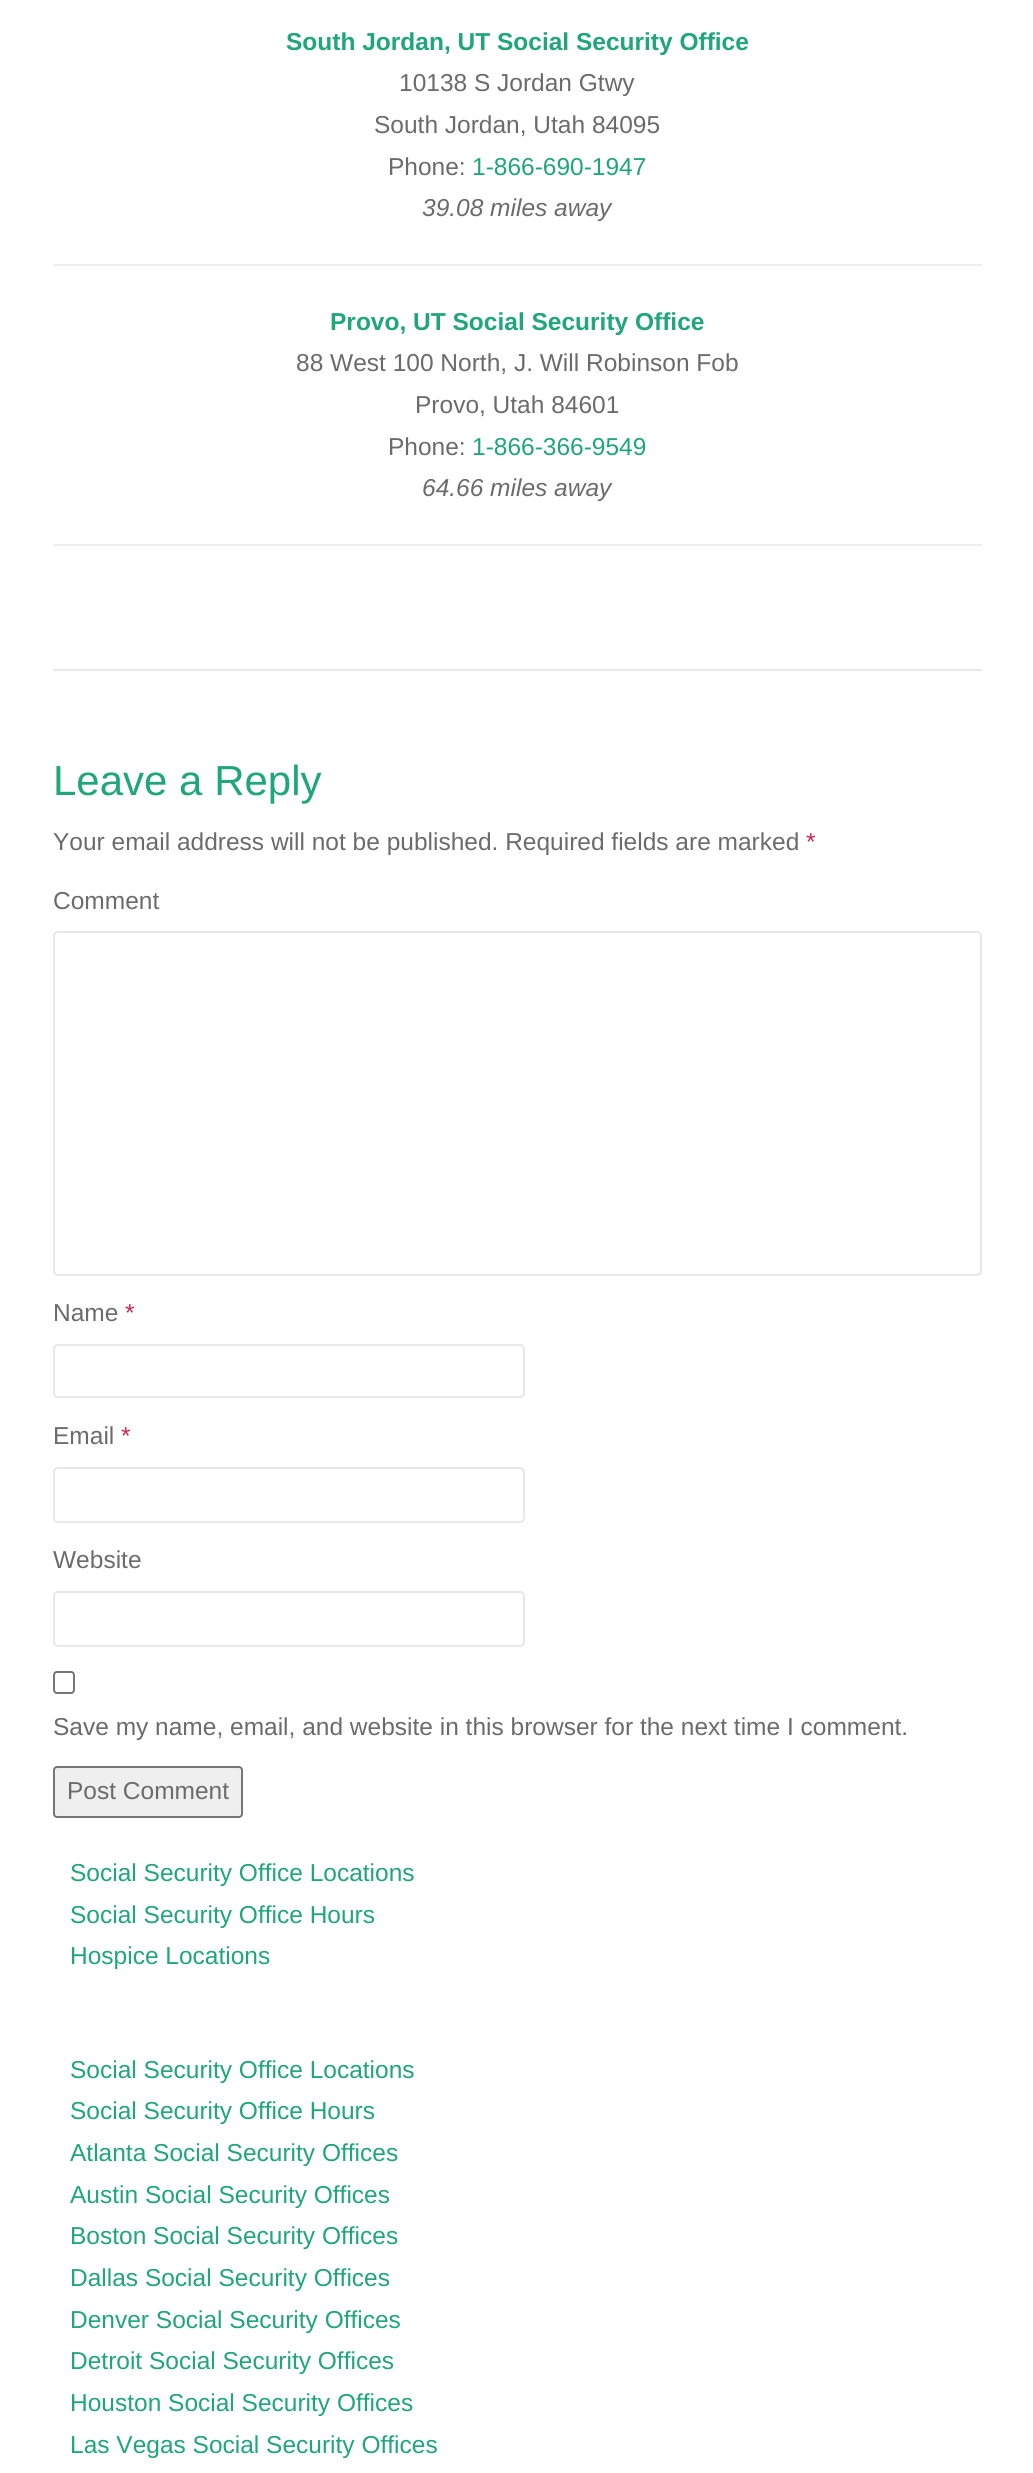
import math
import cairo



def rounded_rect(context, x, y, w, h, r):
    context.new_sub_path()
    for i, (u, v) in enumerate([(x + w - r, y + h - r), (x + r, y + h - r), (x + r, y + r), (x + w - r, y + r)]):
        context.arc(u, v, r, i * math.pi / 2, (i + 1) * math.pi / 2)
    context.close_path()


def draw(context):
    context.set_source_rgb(1, 1, 1)
    context.paint()
    context.set_source_rgb(238 / 255, 238 / 255, 238 / 255)
    context.rectangle(53, 264, 929, 2)
    context.fill()
    context.rectangle(53, 544, 929, 2)
    context.fill()
    context.set_source_rgb(232 / 255, 232 / 255, 232 / 255)
    context.rectangle(53, 669, 929, 2)
    context.fill()
    rounded_rect(context, 54, 932, 927, 343, 4)
    context.stroke()
    rounded_rect(context, 54, 1345, 470, 52, 4)
    context.stroke()
    rounded_rect(context, 54, 1468, 470, 54, 4)
    context.stroke()
    rounded_rect(context, 54, 1592, 470, 54, 4)
    context.stroke()
    rounded_rect(context, 54, 1672, 20, 21, 3)
    context.set_source_rgb(118 / 255, 118 / 255, 118 / 255)
    context.stroke()
    context.set_source_rgb(239 / 255, 239 / 255, 239 / 255)
    rounded_rect(context, 54, 1767, 188, 50, 3)
    context.fill_preserve()
    context.set_source_rgb(118 / 255, 118 / 255, 118 / 255)
    context.stroke()
    context.select_font_face("Liberation Sans", cairo.FontSlant.NORMAL, cairo.FontWeight.BOLD)
    context.set_font_size(24.5)
    context.set_source_rgb(31 / 255, 166 / 255, 122 / 255)
    context.move_to(286, 50)
    context.show_text("South Jordan, UT Social Security Office")
    context.select_font_face("Liberation Sans")
    context.set_source_rgb(107 / 255, 107 / 255, 107 / 255)
    context.move_to(399, 91)
    context.show_text("10138 S Jordan Gtwy")
    context.move_to(374, 133)
    context.show_text("South Jordan, Utah 84095")
    context.move_to(388, 175)
    context.show_text("Phone:")
    context.set_source_rgb(31 / 255, 166 / 255, 122 / 255)
    context.move_to(472, 175)
    context.show_text("1-866-690-1947")
    context.select_font_face("Liberation Sans", cairo.FontSlant.ITALIC)
    context.set_source_rgb(107 / 255, 107 / 255, 107 / 255)
    context.move_to(422, 216)
    context.show_text("39.08 miles away")
    context.select_font_face("Liberation Sans", cairo.FontSlant.NORMAL, cairo.FontWeight.BOLD)
    context.set_source_rgb(31 / 255, 166 / 255, 122 / 255)
    context.move_to(330, 330)
    context.show_text("Provo, UT Social Security Office")
    context.select_font_face("Liberation Sans")
    context.set_source_rgb(107 / 255, 107 / 255, 107 / 255)
    context.move_to(296, 371)
    context.show_text("88 West 100 North, J. Will Robinson Fob")
    context.move_to(415, 413)
    context.show_text("Provo, Utah 84601")
    context.move_to(388, 455)
    context.show_text("Phone:")
    context.set_source_rgb(31 / 255, 166 / 255, 122 / 255)
    context.move_to(472, 455)
    context.show_text("1-866-366-9549")
    context.select_font_face("Liberation Sans", cairo.FontSlant.ITALIC)
    context.set_source_rgb(107 / 255, 107 / 255, 107 / 255)
    context.move_to(422, 496)
    context.show_text("64.66 miles away")
    context.select_font_face("Liberation Sans")
    context.set_font_size(42)
    context.set_source_rgb(31 / 255, 166 / 255, 122 / 255)
    context.move_to(53, 795)
    context.show_text("Leave a Reply")
    context.set_font_size(24.5)
    context.set_source_rgb(107 / 255, 107 / 255, 107 / 255)
    context.move_to(53, 850)
    context.show_text("Your email address will not be published. Required fields are marked")
    context.set_source_rgb(199 / 255, 37 / 255, 78 / 255)
    context.move_to(806, 850)
    context.show_text("*")
    context.set_source_rgb(107 / 255, 107 / 255, 107 / 255)
    context.move_to(53, 909)
    context.show_text("Comment")
    context.move_to(53, 1321)
    context.show_text("Name")
    context.set_source_rgb(199 / 255, 37 / 255, 78 / 255)
    context.move_to(125, 1321)
    context.show_text("*")
    context.set_source_rgb(107 / 255, 107 / 255, 107 / 255)
    context.move_to(53, 1444)
    context.show_text("Email")
    context.set_source_rgb(199 / 255, 37 / 255, 78 / 255)
    context.move_to(121, 1444)
    context.show_text("*")
    context.set_source_rgb(107 / 255, 107 / 255, 107 / 255)
    context.move_to(53, 1568)
    context.show_text("Website")
    context.move_to(53, 1735)
    context.show_text("Save my name, email, and website in this browser for the next time I comment.")
    context.move_to(67, 1799)
    context.show_text("Post Comment")
    context.set_source_rgb(31 / 255, 166 / 255, 122 / 255)
    context.move_to(70, 1881)
    context.show_text("Social Security Office Locations")
    context.move_to(70, 1923)
    context.show_text("Social Security Office Hours")
    context.move_to(70, 1964)
    context.show_text("Hospice Locations")
    context.move_to(70, 2078)
    context.show_text("Social Security Office Locations")
    context.move_to(70, 2119)
    context.show_text("Social Security Office Hours")
    context.move_to(70, 2161)
    context.show_text("Atlanta Social Security Offices")
    context.move_to(70, 2203)
    context.show_text("Austin Social Security Offices")
    context.move_to(70, 2244)
    context.show_text("Boston Social Security Offices")
    context.move_to(70, 2286)
    context.show_text("Dallas Social Security Offices")
    context.move_to(70, 2328)
    context.show_text("Denver Social Security Offices")
    context.move_to(70, 2369)
    context.show_text("Detroit Social Security Offices")
    context.move_to(70, 2411)
    context.show_text("Houston Social Security Offices")
    context.move_to(70, 2453)
    context.show_text("Las Vegas Social Security Offices")


surface = cairo.ImageSurface(cairo.Format.RGB24, 1033, 2473)
context = cairo.Context(surface)
options = cairo.FontOptions()
options.set_hint_metrics(cairo.HintMetrics.OFF)
options.set_hint_style(cairo.HintStyle.NONE)
context.set_font_options(options)
context.set_miter_limit(4)
draw(context)
surface.write_to_png("out.png")
